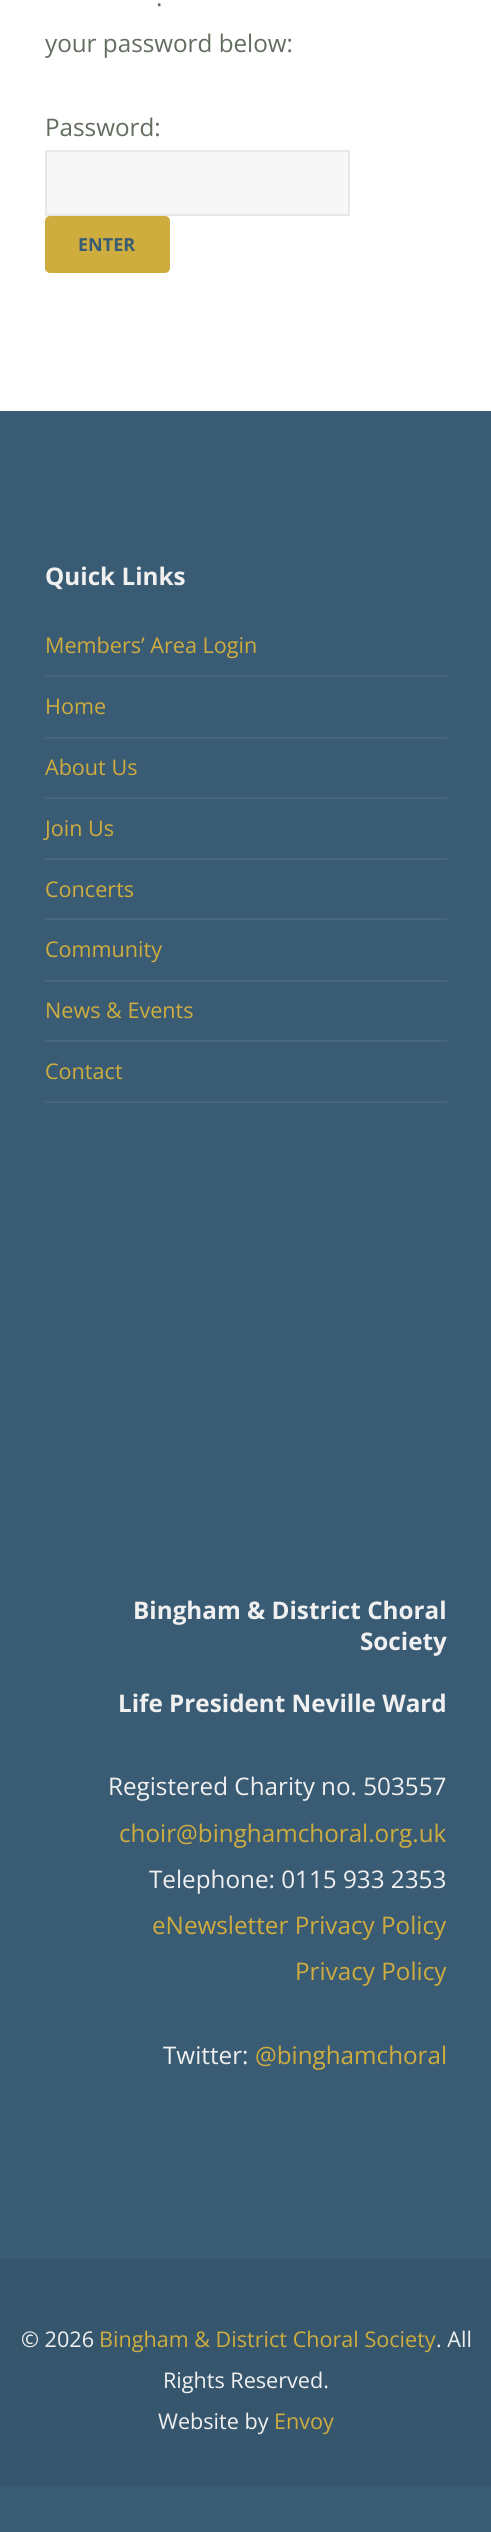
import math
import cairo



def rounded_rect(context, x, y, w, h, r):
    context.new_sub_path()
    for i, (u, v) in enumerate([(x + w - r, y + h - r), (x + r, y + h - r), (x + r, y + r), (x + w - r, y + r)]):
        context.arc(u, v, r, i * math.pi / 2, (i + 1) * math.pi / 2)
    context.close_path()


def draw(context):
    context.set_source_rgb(1, 1, 1)
    context.paint()
    context.set_source_rgb(247 / 255, 247 / 255, 247 / 255)
    context.rectangle(46, 151, 303, 64)
    context.fill_preserve()
    context.set_source_rgb(232 / 255, 232 / 255, 232 / 255)
    context.stroke()
    context.set_source_rgb(206 / 255, 172 / 255, 62 / 255)
    rounded_rect(context, 45, 216, 125, 57, 5)
    context.fill()
    context.set_source_rgb(57 / 255, 91 / 255, 116 / 255)
    context.rectangle(0, 411, 491, 2121)
    context.fill()
    context.set_source_rgb(71 / 255, 102 / 255, 126 / 255)
    context.rectangle(45, 675, 402, 2)
    context.fill()
    context.rectangle(45, 737, 402, 2)
    context.fill()
    context.rectangle(45, 797, 402, 2)
    context.fill()
    context.rectangle(45, 858, 402, 2)
    context.fill()
    context.rectangle(45, 918, 402, 2)
    context.fill()
    context.rectangle(45, 980, 402, 2)
    context.fill()
    context.rectangle(45, 1040, 402, 2)
    context.fill()
    context.rectangle(45, 1101, 402, 2)
    context.fill()
    context.set_source_rgb(54 / 255, 86 / 255, 110 / 255)
    context.rectangle(0, 2259, 491, 228)
    context.fill()
    context.select_font_face("Open Sans")
    context.set_font_size(24.25)
    context.set_source_rgb(98 / 255, 109 / 255, 95 / 255)
    context.move_to(156, 6)
    context.show_text(".")
    context.move_to(45, 52)
    context.show_text("your password below:")
    context.move_to(45, 136)
    context.show_text("Password:")
    context.select_font_face("Open Sans", cairo.FontSlant.NORMAL, cairo.FontWeight.BOLD)
    context.set_font_size(18)
    context.set_source_rgb(57 / 255, 91 / 255, 116 / 255)
    context.move_to(78, 251)
    context.show_text("ENTER")
    context.set_font_size(24.25)
    context.set_source_rgb(240 / 255, 240 / 255, 240 / 255)
    context.move_to(45, 585)
    context.show_text("Quick Links")
    context.select_font_face("Open Sans")
    context.set_font_size(21.6)
    context.set_source_rgb(206 / 255, 172 / 255, 62 / 255)
    context.move_to(45, 653)
    context.show_text("Members’ Area Login")
    context.move_to(45, 714)
    context.show_text("Home")
    context.move_to(45, 775)
    context.show_text("About Us")
    context.move_to(45, 836)
    context.show_text("Join Us")
    context.move_to(45, 897)
    context.show_text("Concerts")
    context.move_to(45, 957)
    context.show_text("Community")
    context.move_to(45, 1018)
    context.show_text("News & Events")
    context.move_to(45, 1079)
    context.show_text("Contact")
    context.select_font_face("Open Sans", cairo.FontSlant.NORMAL, cairo.FontWeight.BOLD)
    context.set_font_size(24.25)
    context.set_source_rgb(240 / 255, 240 / 255, 240 / 255)
    context.move_to(133, 1619)
    context.show_text("Bingham & District Choral")
    context.move_to(360, 1650)
    context.show_text("Society")
    context.move_to(118, 1712)
    context.show_text("Life President Neville Ward")
    context.select_font_face("Open Sans")
    context.move_to(108, 1795)
    context.show_text("Registered Charity no. 503557")
    context.set_source_rgb(206 / 255, 172 / 255, 62 / 255)
    context.move_to(119, 1842)
    context.show_text("choir@binghamchoral.org.uk")
    context.set_source_rgb(240 / 255, 240 / 255, 240 / 255)
    context.move_to(149, 1888)
    context.show_text("Telephone: 0115 933 2353")
    context.set_source_rgb(206 / 255, 172 / 255, 62 / 255)
    context.move_to(152, 1934)
    context.show_text("eNewsletter Privacy Policy")
    context.move_to(295, 1980)
    context.show_text("Privacy Policy")
    context.set_source_rgb(240 / 255, 240 / 255, 240 / 255)
    context.move_to(163, 2064)
    context.show_text("Twitter:")
    context.set_source_rgb(206 / 255, 172 / 255, 62 / 255)
    context.move_to(255, 2064)
    context.show_text("@binghamchoral")
    context.set_font_size(21.6)
    context.set_source_rgb(240 / 255, 240 / 255, 240 / 255)
    context.move_to(21, 2347)
    context.show_text("© 2026")
    context.set_source_rgb(206 / 255, 172 / 255, 62 / 255)
    context.move_to(99, 2347)
    context.show_text("Bingham & District Choral Society")
    context.set_source_rgb(240 / 255, 240 / 255, 240 / 255)
    context.move_to(436, 2347)
    context.show_text(". All")
    context.move_to(163, 2388)
    context.show_text("Rights Reserved.")
    context.move_to(158, 2429)
    context.show_text("Website by")
    context.set_source_rgb(206 / 255, 172 / 255, 62 / 255)
    context.move_to(274, 2429)
    context.show_text("Envoy")


surface = cairo.ImageSurface(cairo.Format.RGB24, 491, 2532)
context = cairo.Context(surface)
options = cairo.FontOptions()
options.set_hint_metrics(cairo.HintMetrics.OFF)
options.set_hint_style(cairo.HintStyle.NONE)
context.set_font_options(options)
context.set_miter_limit(4)
draw(context)
surface.write_to_png("out.png")
